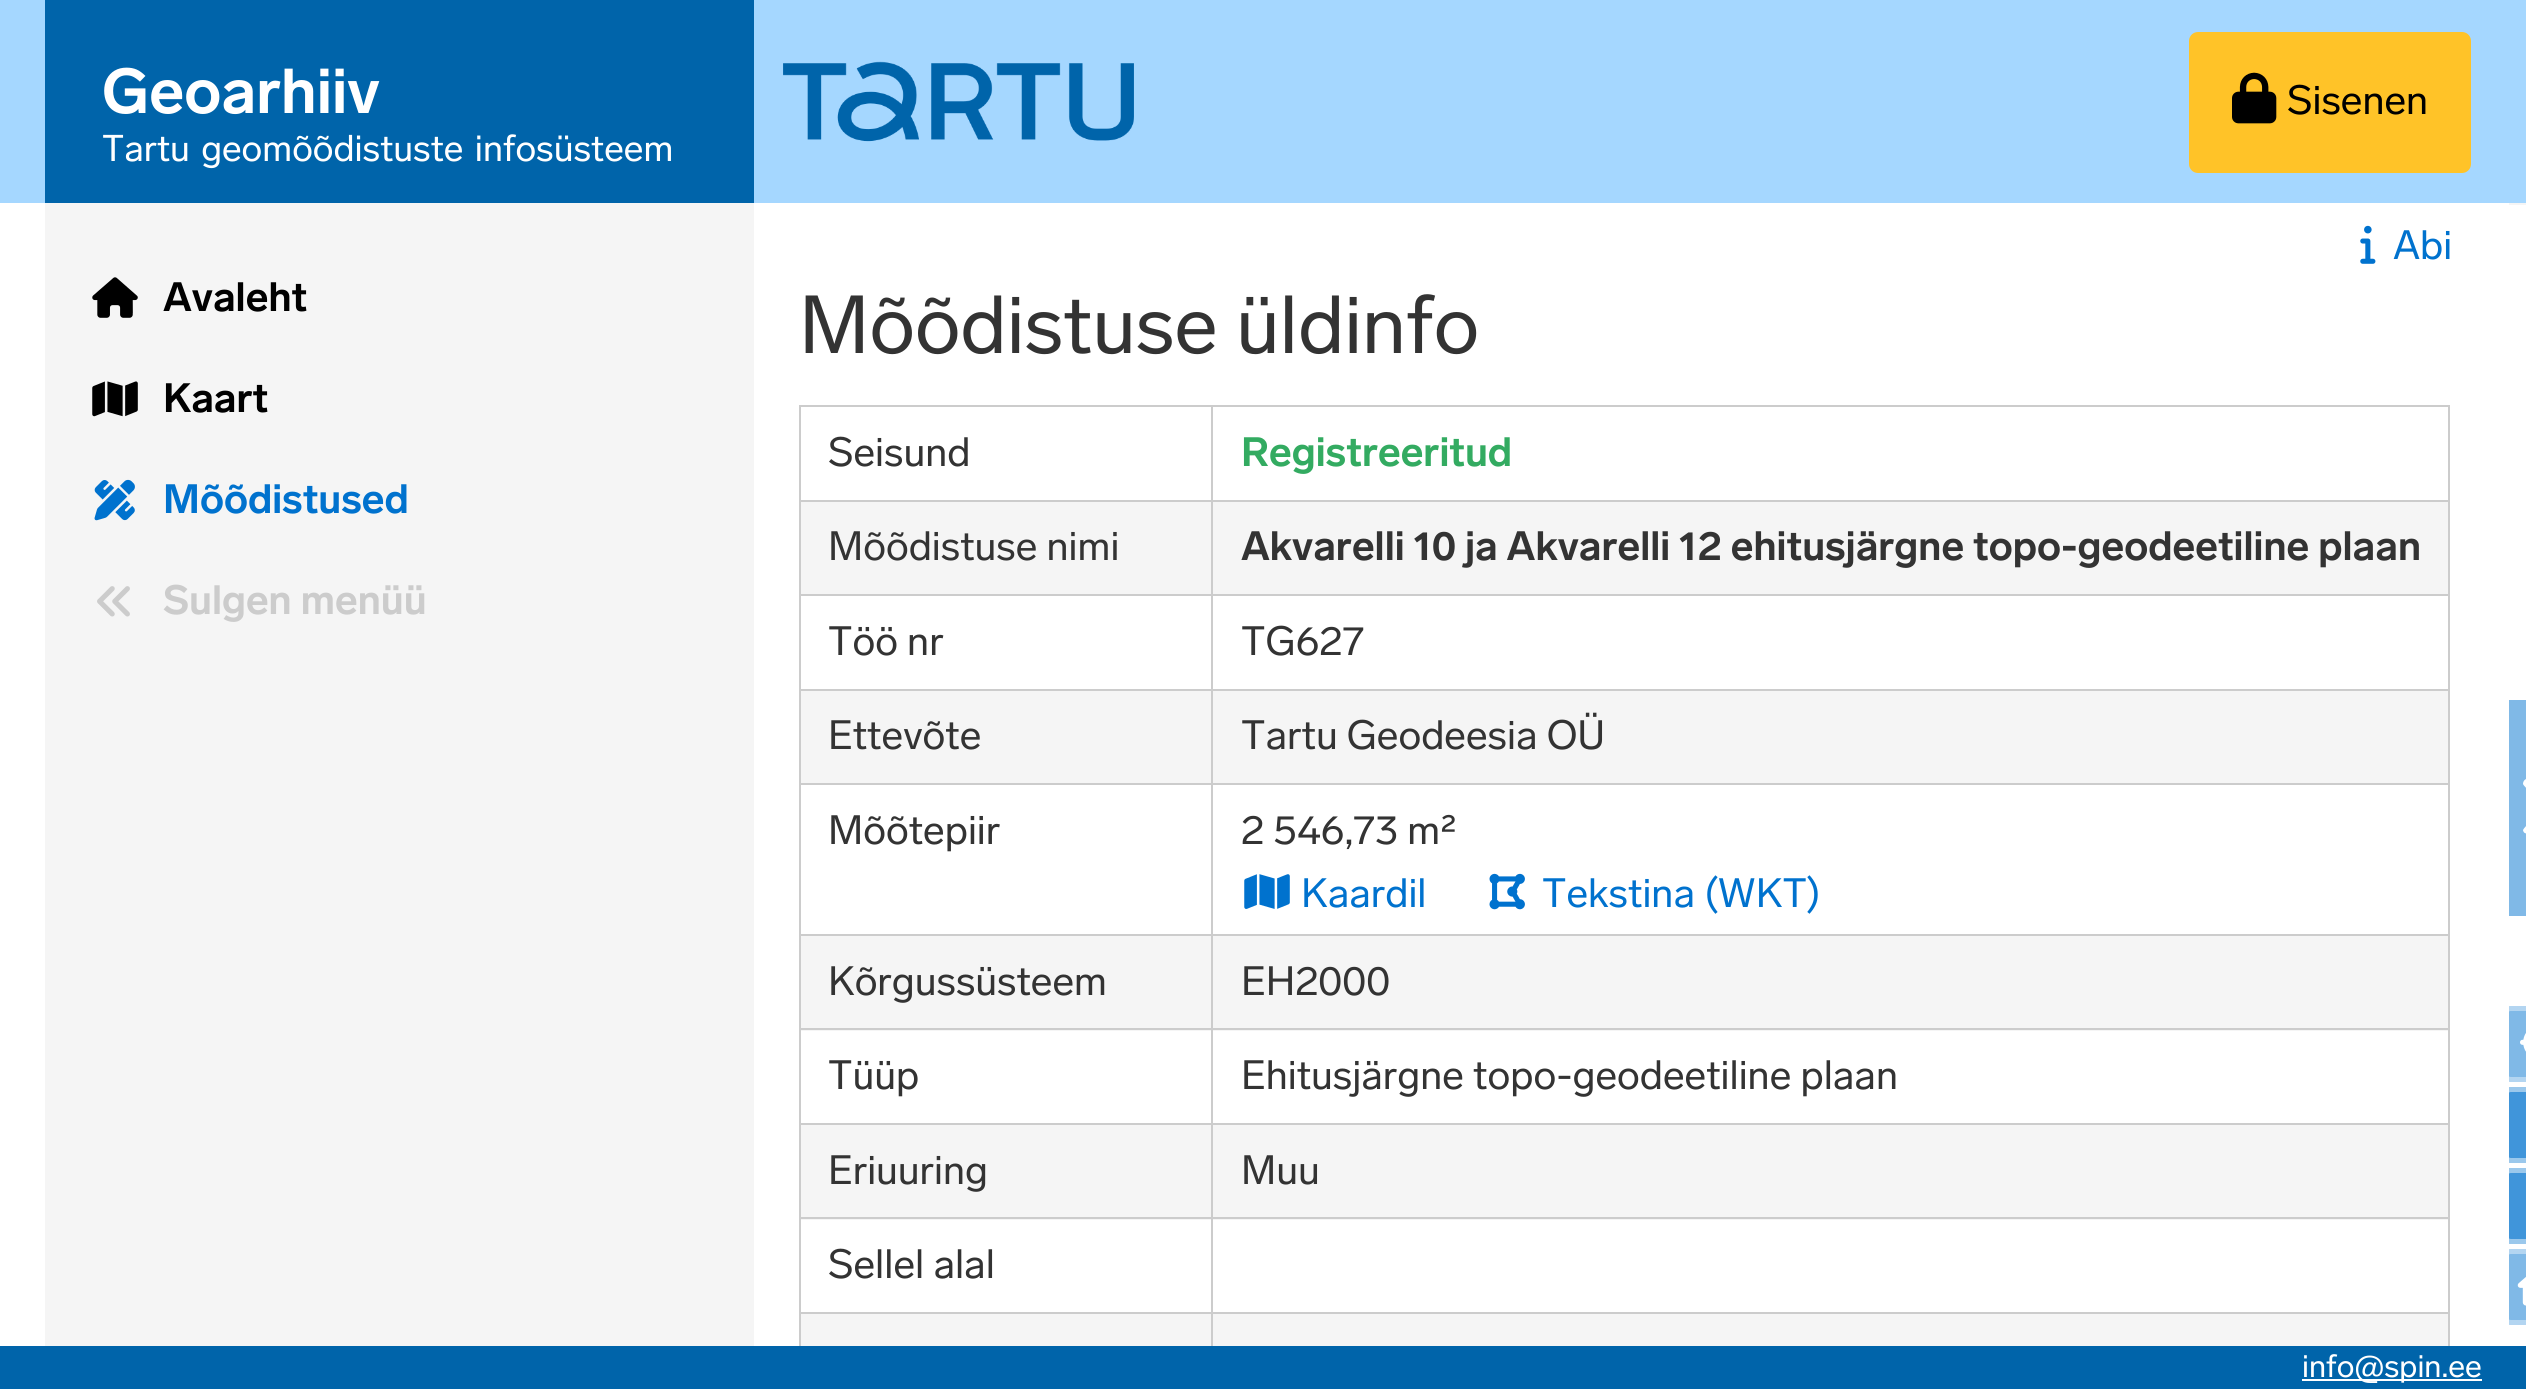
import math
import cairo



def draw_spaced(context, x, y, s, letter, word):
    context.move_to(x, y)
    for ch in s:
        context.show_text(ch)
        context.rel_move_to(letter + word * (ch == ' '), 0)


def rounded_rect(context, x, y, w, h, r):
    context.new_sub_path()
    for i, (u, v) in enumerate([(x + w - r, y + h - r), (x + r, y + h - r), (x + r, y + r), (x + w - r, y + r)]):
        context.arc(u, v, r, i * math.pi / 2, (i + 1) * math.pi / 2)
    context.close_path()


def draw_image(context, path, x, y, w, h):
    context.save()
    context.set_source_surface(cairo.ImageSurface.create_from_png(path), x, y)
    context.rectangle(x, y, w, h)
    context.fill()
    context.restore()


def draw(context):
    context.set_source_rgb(1, 1, 1)
    context.paint()
    context.set_source_rgb(245 / 255, 245 / 255, 245 / 255)
    context.rectangle(45, 203, 709, 1143)
    context.fill()
    context.set_source_rgb(165 / 255, 215 / 255, 1)
    context.rectangle(0, 0, 2526, 203)
    context.fill()
    draw_image(context, "images/1.png", 783, 61, 351, 81)
    context.set_source_rgb(0, 100 / 255, 170 / 255)
    context.rectangle(45, 0, 709, 203)
    context.fill()
    context.set_source_rgb(1, 195 / 255, 40 / 255)
    rounded_rect(context, 2189, 32, 282, 141, 9)
    context.fill()
    draw_image(context, "images/2.png", 2232, 72, 45, 52)
    draw_image(context, "images/3.png", 92, 277, 46, 41)
    draw_image(context, "images/4.png", 92, 381, 46, 36)
    draw_image(context, "images/5.png", 94, 479, 41, 42)
    draw_image(context, "images/6.png", 97, 586, 33, 31)
    draw_image(context, "images/7.png", 2360, 225, 16, 39)
    context.set_source_rgb(204 / 255, 204 / 255, 204 / 255)
    context.rectangle(1211, 405, 1239, 2)
    context.fill()
    context.rectangle(1211, 500, 1239, 2)
    context.fill()
    context.rectangle(1211, 594, 1239, 2)
    context.fill()
    context.rectangle(1211, 689, 1239, 2)
    context.fill()
    context.rectangle(1211, 783, 1239, 2)
    context.fill()
    context.rectangle(1211, 934, 1239, 2)
    context.fill()
    context.set_source_rgb(245 / 255, 245 / 255, 245 / 255)
    context.rectangle(801, 936, 410, 95)
    context.fill()
    context.rectangle(1213, 936, 1235, 95)
    context.fill()
    context.set_source_rgb(204 / 255, 204 / 255, 204 / 255)
    context.rectangle(1211, 1028, 1239, 2)
    context.fill()
    context.rectangle(1211, 1123, 1239, 2)
    context.fill()
    context.set_source_rgb(245 / 255, 245 / 255, 245 / 255)
    context.rectangle(801, 1125, 410, 95)
    context.fill()
    context.rectangle(1213, 1125, 1235, 95)
    context.fill()
    context.set_source_rgb(204 / 255, 204 / 255, 204 / 255)
    context.rectangle(1211, 1217, 1239, 2)
    context.fill()
    context.rectangle(1211, 1312, 1239, 2)
    context.fill()
    context.rectangle(1211, 1312, 2, 34)
    context.fill()
    context.rectangle(799, 1312, 414, 2)
    context.fill()
    context.rectangle(1211, 1217, 2, 97)
    context.fill()
    context.rectangle(799, 1217, 414, 2)
    context.fill()
    context.rectangle(1211, 1123, 2, 97)
    context.fill()
    context.rectangle(799, 1123, 414, 2)
    context.fill()
    context.rectangle(1211, 1028, 2, 97)
    context.fill()
    context.rectangle(799, 1028, 414, 2)
    context.fill()
    context.rectangle(1211, 934, 2, 97)
    context.fill()
    context.rectangle(799, 934, 414, 2)
    context.fill()
    context.rectangle(1211, 783, 2, 153)
    context.fill()
    context.rectangle(799, 783, 414, 2)
    context.fill()
    context.rectangle(1211, 689, 2, 96)
    context.fill()
    context.rectangle(799, 689, 414, 2)
    context.fill()
    context.rectangle(1211, 594, 2, 97)
    context.fill()
    context.rectangle(799, 594, 414, 2)
    context.fill()
    context.rectangle(1211, 500, 2, 96)
    context.fill()
    context.rectangle(799, 500, 414, 2)
    context.fill()
    context.rectangle(1211, 405, 2, 97)
    context.fill()
    context.rectangle(799, 405, 414, 2)
    context.fill()
    context.rectangle(799, 1312, 2, 34)
    context.fill()
    context.rectangle(799, 1217, 2, 97)
    context.fill()
    context.rectangle(799, 1123, 2, 97)
    context.fill()
    context.rectangle(799, 1028, 2, 97)
    context.fill()
    context.rectangle(799, 934, 2, 97)
    context.fill()
    context.rectangle(799, 783, 2, 153)
    context.fill()
    context.rectangle(799, 689, 2, 96)
    context.fill()
    context.rectangle(799, 594, 2, 97)
    context.fill()
    context.rectangle(799, 500, 2, 96)
    context.fill()
    context.rectangle(799, 405, 2, 97)
    context.fill()
    context.rectangle(2448, 1312, 2, 34)
    context.fill()
    context.rectangle(2448, 1217, 2, 97)
    context.fill()
    context.rectangle(2448, 1123, 2, 97)
    context.fill()
    context.rectangle(2448, 1028, 2, 97)
    context.fill()
    context.rectangle(2448, 934, 2, 97)
    context.fill()
    context.rectangle(2448, 783, 2, 153)
    context.fill()
    context.rectangle(2448, 689, 2, 96)
    context.fill()
    context.rectangle(2448, 594, 2, 97)
    context.fill()
    context.rectangle(2448, 500, 2, 96)
    context.fill()
    context.rectangle(2448, 405, 2, 97)
    context.fill()
    context.set_source_rgb(245 / 255, 245 / 255, 245 / 255)
    context.rectangle(801, 502, 410, 92)
    context.fill()
    context.rectangle(1213, 502, 1235, 92)
    context.fill()
    context.rectangle(801, 691, 410, 92)
    context.fill()
    context.rectangle(1213, 691, 1235, 92)
    context.fill()
    draw_image(context, "images/8.png", 1244, 874, 46, 35)
    draw_image(context, "images/9.png", 1489, 873, 36, 37)
    context.rectangle(801, 1314, 410, 32)
    context.fill()
    context.rectangle(1213, 1314, 1235, 32)
    context.fill()
    context.rectangle(2509, 203, 17, 2)
    context.fill()
    context.save()
    context.rectangle(2509, 205, 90, 1141)
    context.clip()
    context.set_source_rgb(128 / 255, 185 / 255, 231 / 255)
    rounded_rect(context, 2502, 1006, 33, 76, 9)
    context.fill()
    rounded_rect(context, 2504.5, 1008.5, 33, 71, 6.5)
    context.set_source_rgba(1, 1, 1, 0.4)
    context.set_line_width(5)
    context.stroke()
    context.restore()
    draw_image(context, "images/10.png", 2520, 1033, 6, 19)
    context.save()
    context.rectangle(2509, 205, 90, 1141)
    context.clip()
    context.set_source_rgb(128 / 255, 185 / 255, 231 / 255)
    rounded_rect(context, 2502, 1087, 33, 76, 9)
    context.fill()
    rounded_rect(context, 2504.5, 1089.5, 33, 71, 6.5)
    context.set_source_rgba(1, 1, 1, 0.4)
    context.set_line_width(5)
    context.stroke()
    context.set_source_rgb(128 / 255, 185 / 255, 231 / 255)
    rounded_rect(context, 2502, 1168, 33, 76, 9)
    context.fill()
    rounded_rect(context, 2504.5, 1170.5, 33, 71, 6.5)
    context.set_source_rgba(1, 1, 1, 0.4)
    context.stroke()
    context.set_source_rgba(0, 114 / 255, 206 / 255, 0.5)
    rounded_rect(context, 2502, 1087, 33, 76, 9)
    context.fill()
    rounded_rect(context, 2504.5, 1089.5, 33, 71, 6.5)
    context.set_source_rgba(1, 1, 1, 0.4)
    context.stroke()
    context.set_source_rgba(0, 114 / 255, 206 / 255, 0.5)
    rounded_rect(context, 2502, 1168, 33, 76, 9)
    context.fill()
    rounded_rect(context, 2504.5, 1170.5, 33, 71, 6.5)
    context.set_source_rgba(1, 1, 1, 0.4)
    context.stroke()
    context.set_source_rgb(128 / 255, 185 / 255, 231 / 255)
    rounded_rect(context, 2502, 1249, 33, 76, 9)
    context.fill()
    rounded_rect(context, 2504.5, 1251.5, 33, 71, 6.5)
    context.set_source_rgba(1, 1, 1, 0.4)
    context.stroke()
    context.restore()
    draw_image(context, "images/11.png", 2517, 1277, 9, 29)
    context.set_source_rgb(128 / 255, 185 / 255, 231 / 255)
    context.rectangle(2509, 700, 17, 216)
    context.fill()
    context.set_source_rgb(1, 1, 1)
    context.new_path()
    context.move_to(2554, 804)
    context.curve_to(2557, 808, 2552, 811, 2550, 813)
    context.line_to(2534, 829)
    context.curve_to(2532, 831, 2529, 836, 2525, 833)
    context.curve_to(2524, 833, 2523, 831, 2523, 830)
    context.curve_to(2524, 827, 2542, 810, 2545, 807)
    context.curve_to(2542, 803, 2524, 787, 2523, 784)
    context.curve_to(2523, 780, 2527, 777, 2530, 780)
    context.close_path()
    context.fill()
    context.set_source_rgb(0, 100 / 255, 170 / 255)
    context.rectangle(0, 1346, 2526, 43)
    context.fill()
    context.set_source_rgb(1, 1, 1)
    context.rectangle(2302, 1379, 180, 2)
    context.fill()
    context.select_font_face("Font", cairo.FontSlant.NORMAL, cairo.FontWeight.BOLD)
    context.set_font_size(62.5)
    context.move_to(102, 113)
    context.show_text("Geoarhiiv")
    context.select_font_face("Font")
    context.set_font_size(36.8)
    draw_spaced(context, 102, 161, "Tartu geomõõdistuste infosüsteem", 0, 3)
    context.set_font_size(40.5)
    context.set_source_rgb(0, 0, 0)
    context.move_to(2287, 114)
    context.show_text("Sisenen")
    context.select_font_face("Font", cairo.FontSlant.NORMAL, cairo.FontWeight.BOLD)
    context.move_to(163, 311)
    context.show_text("Avaleht")
    context.move_to(163, 412)
    context.show_text("Kaart")
    context.set_source_rgb(0, 114 / 255, 206 / 255)
    context.move_to(163, 513)
    context.show_text("Mõõdistused")
    context.set_source_rgb(204 / 255, 204 / 255, 204 / 255)
    context.move_to(163, 614)
    context.show_text("Sulgen menüü")
    context.select_font_face("Font")
    context.set_source_rgb(0, 114 / 255, 206 / 255)
    context.move_to(2393, 259)
    context.show_text("Abi")
    context.set_font_size(81)
    context.set_source_rgb(51 / 255, 51 / 255, 51 / 255)
    context.move_to(799, 353)
    context.show_text("Mõõdistuse üldinfo")
    context.set_font_size(40.5)
    context.move_to(828, 466)
    context.show_text("Seisund")
    context.select_font_face("Font", cairo.FontSlant.NORMAL, cairo.FontWeight.BOLD)
    context.set_source_rgb(51 / 255, 171 / 255, 97 / 255)
    context.move_to(1241, 466)
    context.show_text("Registreeritud")
    context.select_font_face("Font")
    context.set_source_rgb(51 / 255, 51 / 255, 51 / 255)
    context.move_to(828, 560)
    context.show_text("Mõõdistuse nimi")
    context.select_font_face("Font", cairo.FontSlant.NORMAL, cairo.FontWeight.BOLD)
    context.move_to(1241, 560)
    context.show_text("Akvarelli 10 ja Akvarelli 12 ehitusjärgne topo-geodeetiline plaan")
    context.select_font_face("Font")
    context.move_to(828, 655)
    context.show_text("Töö nr")
    context.move_to(1241, 655)
    context.show_text("TG627")
    context.move_to(828, 749)
    context.show_text("Ettevõte")
    context.move_to(1241, 749)
    context.show_text("Tartu Geodeesia OÜ")
    context.move_to(828, 844)
    context.show_text("Mõõtepiir")
    context.move_to(1241, 844)
    context.show_text("2 546,73 m²")
    context.set_source_rgb(0, 114 / 255, 206 / 255)
    context.move_to(1301, 907)
    context.show_text("Kaardil")
    context.move_to(1542, 907)
    context.show_text("Tekstina (WKT)")
    context.set_source_rgb(51 / 255, 51 / 255, 51 / 255)
    context.move_to(828, 995)
    context.show_text("Kõrgussüsteem")
    context.move_to(1241, 995)
    context.show_text("EH2000")
    context.move_to(828, 1089)
    context.show_text("Tüüp")
    context.move_to(1241, 1089)
    context.show_text("Ehitusjärgne topo-geodeetiline plaan")
    context.move_to(828, 1184)
    context.show_text("Eriuuring")
    context.move_to(1241, 1184)
    context.show_text("Muu")
    context.move_to(828, 1278)
    context.show_text("Sellel alal")
    context.set_font_size(31.5)
    context.set_source_rgb(1, 1, 1)
    context.move_to(2302, 1377)
    context.show_text("info@spin.ee")


surface = cairo.ImageSurface(cairo.Format.RGB24, 2526, 1389)
context = cairo.Context(surface)
options = cairo.FontOptions()
options.set_hint_metrics(cairo.HintMetrics.OFF)
options.set_hint_style(cairo.HintStyle.NONE)
context.set_font_options(options)
context.set_miter_limit(4)
draw(context)
surface.write_to_png("out.png")
